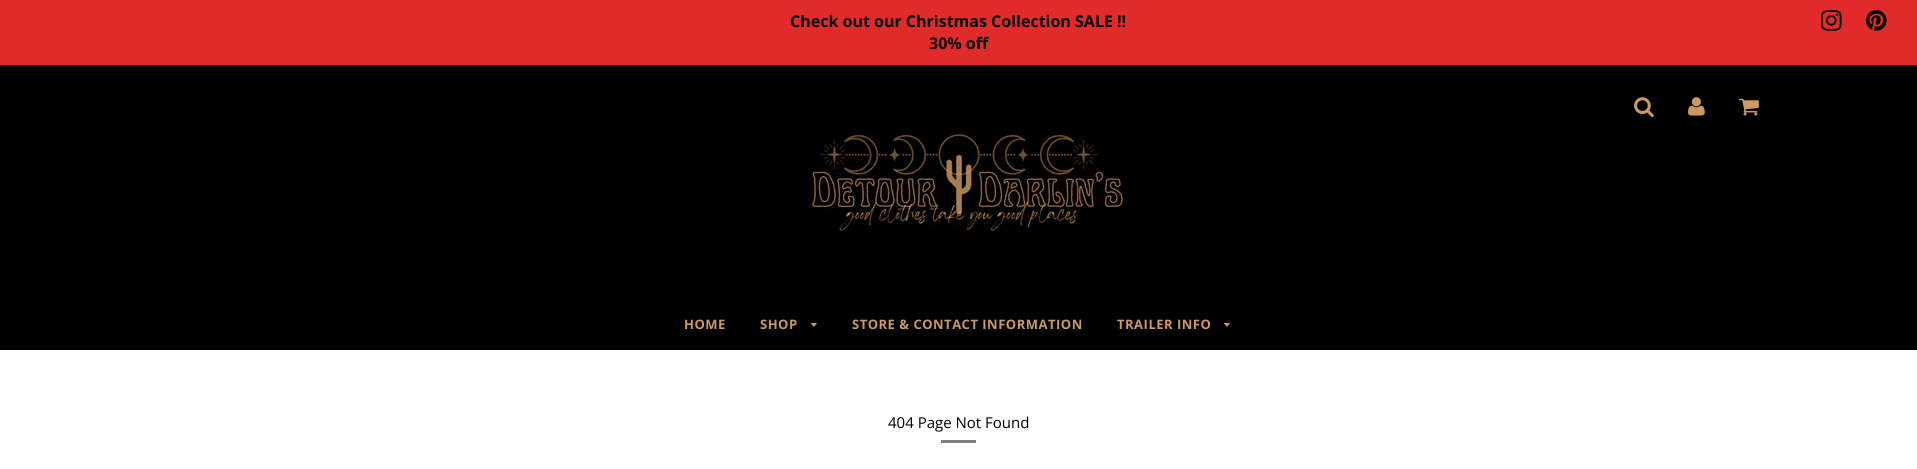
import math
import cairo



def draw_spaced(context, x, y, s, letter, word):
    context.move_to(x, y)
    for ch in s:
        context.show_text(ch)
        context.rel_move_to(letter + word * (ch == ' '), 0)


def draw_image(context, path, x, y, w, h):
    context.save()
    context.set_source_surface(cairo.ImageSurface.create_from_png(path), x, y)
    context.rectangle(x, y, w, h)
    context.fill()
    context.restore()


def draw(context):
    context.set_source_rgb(1, 1, 1)
    context.paint()
    context.set_source_rgb(225 / 255, 43 / 255, 43 / 255)
    context.rectangle(0, 0, 1917, 65)
    context.fill()
    draw_image(context, "images/1.png", 1821, 10, 21, 21)
    draw_image(context, "images/2.png", 1866, 10, 21, 21)
    context.set_source_rgb(0, 0, 0)
    context.rectangle(0, 65, 1917, 285)
    context.fill()
    draw_image(context, "images/3.png", 1634, 97, 20, 20)
    draw_image(context, "images/4.png", 1688, 97, 17, 19)
    draw_image(context, "images/5.png", 1739, 98, 20, 18)
    draw_image(context, "images/6.png", 811, 132, 313, 100)
    context.set_source_rgb(203 / 255, 153 / 255, 97 / 255)
    context.new_path()
    context.move_to(810.5, 323)
    context.line_to(814, 327)
    context.line_to(817, 323)
    context.close_path()
    context.fill()
    context.new_path()
    context.move_to(1223.5, 323)
    context.line_to(1227, 327)
    context.line_to(1230, 323)
    context.close_path()
    context.fill()
    context.set_source_rgb(128 / 255, 128 / 255, 128 / 255)
    context.rectangle(941, 440, 35, 3)
    context.fill()
    context.select_font_face("Open Sans", cairo.FontSlant.NORMAL, cairo.FontWeight.BOLD)
    context.set_font_size(16)
    context.set_source_rgb(0, 0, 0)
    context.move_to(790, 27)
    context.show_text("Check out our Christmas Collection SALE !!")
    context.move_to(929, 49)
    context.show_text("30% off")
    context.set_font_size(13)
    context.set_source_rgb(203 / 255, 153 / 255, 97 / 255)
    draw_spaced(context, 684, 329, "HOME", 0.5, 0)
    draw_spaced(context, 760, 329, "SHOP", 0.5, 0)
    draw_spaced(context, 852, 329, "STORE & CONTACT INFORMATION", 0.5, 0)
    draw_spaced(context, 1117, 329, "TRAILER INFO", 0.5, 0)
    context.select_font_face("Open Sans")
    context.set_font_size(15)
    context.set_source_rgb(0, 0, 0)
    context.move_to(888, 428)
    context.show_text("404 Page Not Found")


surface = cairo.ImageSurface(cairo.Format.RGB24, 1917, 469)
context = cairo.Context(surface)
options = cairo.FontOptions()
options.set_hint_metrics(cairo.HintMetrics.OFF)
options.set_hint_style(cairo.HintStyle.NONE)
context.set_font_options(options)
context.set_miter_limit(4)
draw(context)
surface.write_to_png("out.png")
